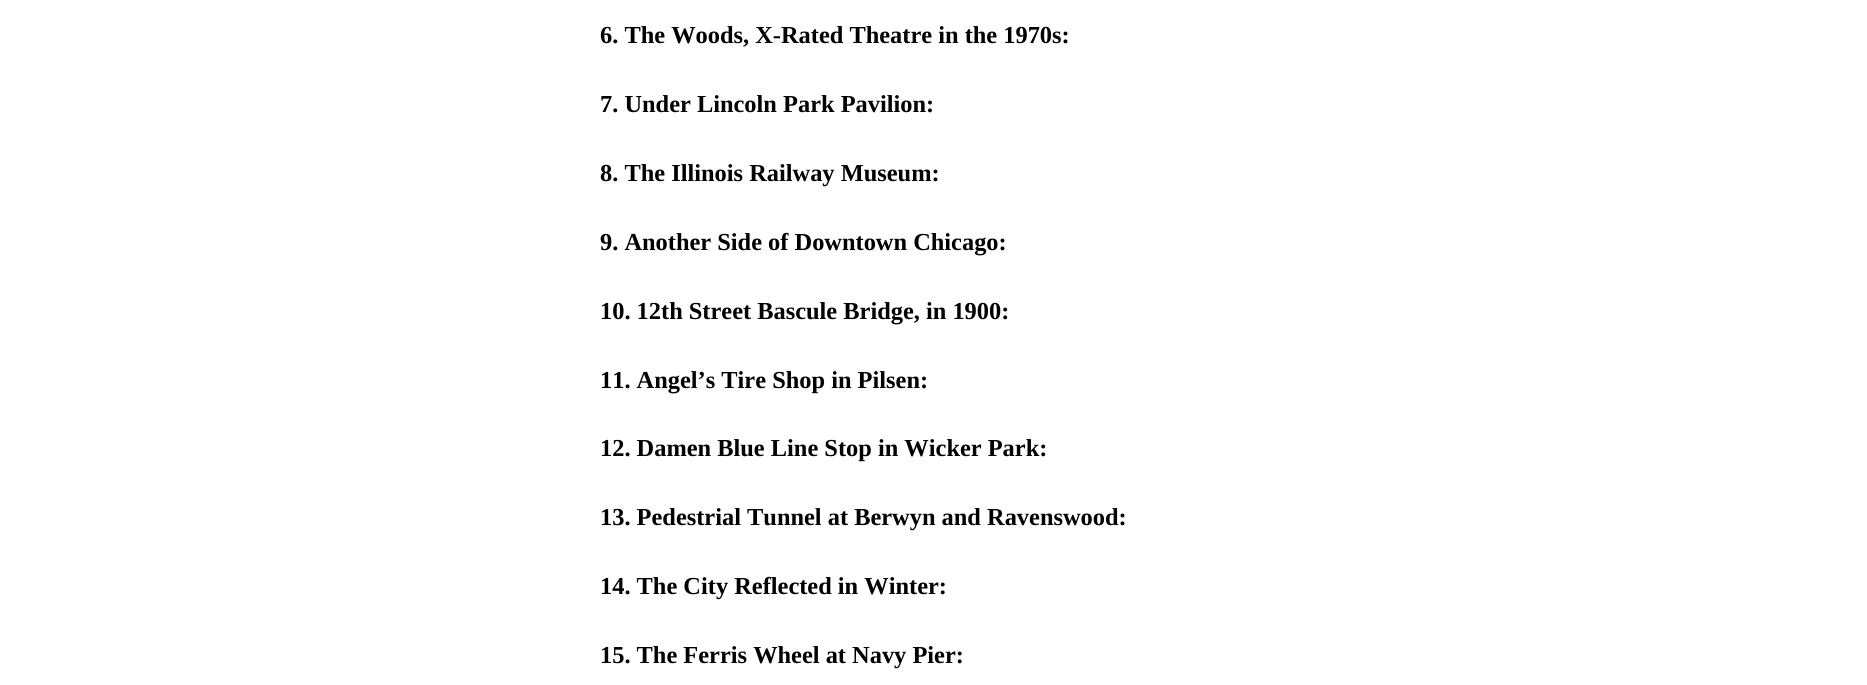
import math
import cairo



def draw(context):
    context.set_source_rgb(1, 1, 1)
    context.paint()
    context.select_font_face("Liberation Serif", cairo.FontSlant.NORMAL, cairo.FontWeight.BOLD)
    context.set_font_size(24.4)
    context.set_source_rgb(0, 0, 0)
    context.move_to(600, 43)
    context.show_text("6. The Woods, X-Rated Theatre in the 1970s:")
    context.move_to(600, 112)
    context.show_text("7. Under Lincoln Park Pavilion:")
    context.move_to(600, 181)
    context.show_text("8. The Illinois Railway Museum:")
    context.move_to(600, 250)
    context.show_text("9. Another Side of Downtown Chicago:")
    context.move_to(600, 319)
    context.show_text("10. 12th Street Bascule Bridge, in 1900:")
    context.move_to(600, 388)
    context.show_text("11. Angel’s Tire Shop in Pilsen:")
    context.move_to(600, 456)
    context.show_text("12. Damen Blue Line Stop in Wicker Park:")
    context.move_to(600, 525)
    context.show_text("13. Pedestrial Tunnel at Berwyn and Ravenswood:")
    context.move_to(600, 594)
    context.show_text("14. The City Reflected in Winter:")
    context.move_to(600, 663)
    context.show_text("15. The Ferris Wheel at Navy Pier:")


surface = cairo.ImageSurface(cairo.Format.RGB24, 1867, 685)
context = cairo.Context(surface)
options = cairo.FontOptions()
options.set_hint_metrics(cairo.HintMetrics.OFF)
options.set_hint_style(cairo.HintStyle.NONE)
context.set_font_options(options)
context.set_miter_limit(4)
draw(context)
surface.write_to_png("out.png")
